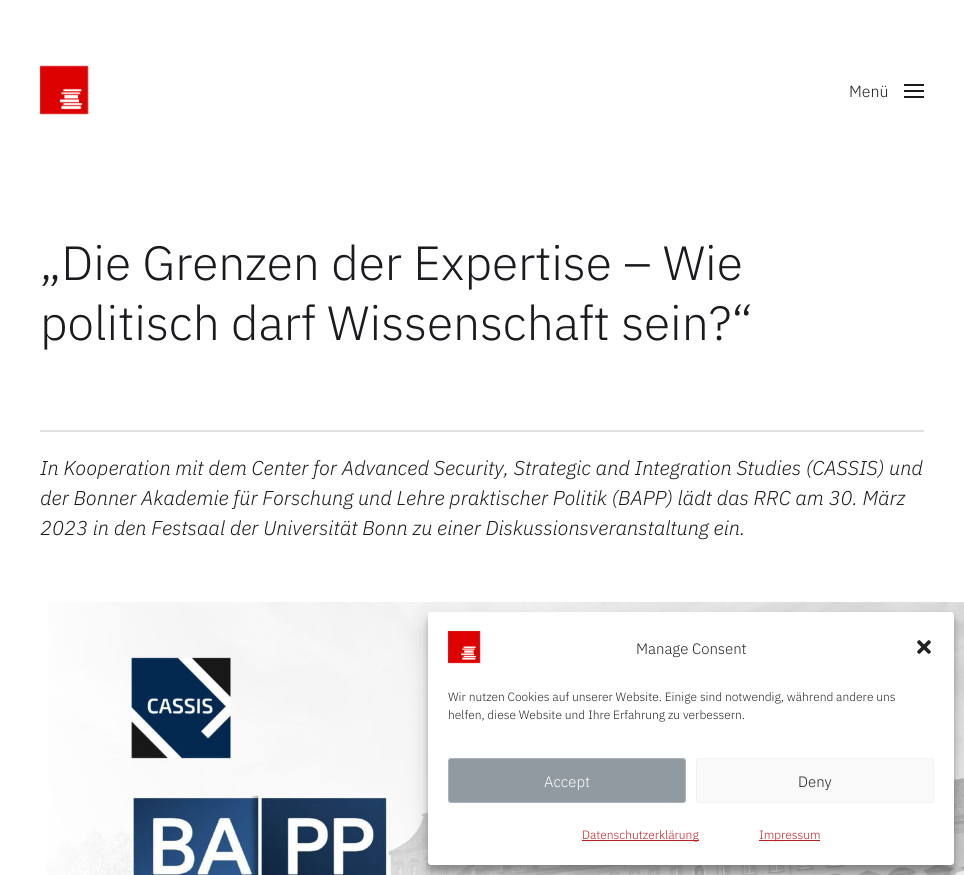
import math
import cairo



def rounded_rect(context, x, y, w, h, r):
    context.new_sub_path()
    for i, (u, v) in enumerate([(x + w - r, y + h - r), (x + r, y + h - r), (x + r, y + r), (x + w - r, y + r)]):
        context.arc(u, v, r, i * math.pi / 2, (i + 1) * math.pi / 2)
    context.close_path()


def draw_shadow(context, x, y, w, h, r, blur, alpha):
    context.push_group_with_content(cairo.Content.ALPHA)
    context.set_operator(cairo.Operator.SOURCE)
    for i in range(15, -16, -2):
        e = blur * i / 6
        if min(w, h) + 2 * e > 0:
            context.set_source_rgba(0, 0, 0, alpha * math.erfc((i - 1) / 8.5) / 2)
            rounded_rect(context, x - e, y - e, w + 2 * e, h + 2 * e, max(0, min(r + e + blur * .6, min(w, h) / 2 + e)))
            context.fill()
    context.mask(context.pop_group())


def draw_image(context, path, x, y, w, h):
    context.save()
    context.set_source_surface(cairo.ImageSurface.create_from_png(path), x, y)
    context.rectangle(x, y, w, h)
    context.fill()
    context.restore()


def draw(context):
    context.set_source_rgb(1, 1, 1)
    context.paint()
    draw_image(context, "images/1.png", 40, 65, 49, 50)
    context.set_source_rgb(26 / 255, 27 / 255, 31 / 255)
    context.rectangle(904, 84, 20, 2)
    context.fill()
    context.rectangle(904, 90, 20, 2)
    context.fill()
    context.rectangle(904, 96, 20, 2)
    context.fill()
    context.set_source_rgb(225 / 255, 225 / 255, 227 / 255)
    context.rectangle(40, 430, 884, 2)
    context.fill()
    draw_image(context, "images/2.png", 47, 602, 917, 273)
    context.set_source_rgb(0, 0, 0)
    draw_shadow(context, 428, 618, 526, 253, 3, 3, 0.23)
    draw_shadow(context, 428, 622, 526, 253, 3, 10, 0.19)
    context.set_source_rgb(1, 1, 1)
    rounded_rect(context, 428, 612, 526, 253, 3)
    context.fill()
    draw_image(context, "images/3.png", 448, 630, 33, 34)
    draw_image(context, "images/4.png", 917, 640, 14, 14)
    context.set_source_rgb(144 / 255, 154 / 255, 160 / 255)
    rounded_rect(context, 448.5, 758.5, 237, 44, 2.5)
    context.fill_preserve()
    context.set_source_rgb(171 / 255, 178 / 255, 185 / 255)
    context.set_line_width(1)
    context.stroke()
    context.set_source_rgb(249 / 255, 249 / 255, 249 / 255)
    rounded_rect(context, 696.5, 758.5, 237, 44, 2.5)
    context.fill_preserve()
    context.set_source_rgb(242 / 255, 242 / 255, 242 / 255)
    context.stroke()
    context.set_source_rgb(190 / 255, 30 / 255, 33 / 255)
    context.rectangle(582, 840, 117, 1)
    context.fill()
    context.rectangle(759, 840, 61, 1)
    context.fill()
    context.select_font_face("IBM Plex Sans Light")
    context.set_font_size(16)
    context.set_source_rgb(26 / 255, 27 / 255, 31 / 255)
    context.move_to(849, 97)
    context.show_text("Menü")
    context.set_font_size(48)
    context.move_to(40, 280)
    context.show_text("„Die Grenzen der Expertise – Wie")
    context.move_to(40, 340)
    context.show_text("politisch darf Wissenschaft sein?“")
    context.select_font_face("IBM Plex Sans Light", cairo.FontSlant.ITALIC)
    context.set_font_size(20)
    context.move_to(40, 475)
    context.show_text("In Kooperation mit dem Center for Advanced Security, Strategic and Integration Studies (CASSIS) und")
    context.move_to(40, 505)
    context.show_text("der Bonner Akademie für Forschung und Lehre praktischer Politik (BAPP) lädt das RRC am 30. März")
    context.move_to(40, 535)
    context.show_text("2023 in den Festsaal der Universität Bonn zu einer Diskussionsveranstaltung ein.")
    context.select_font_face("IBM Plex Sans Light")
    context.set_font_size(15)
    context.set_source_rgb(34 / 255, 34 / 255, 34 / 255)
    context.move_to(636, 654)
    context.show_text("Manage Consent")
    context.set_font_size(12)
    context.move_to(448, 701)
    context.show_text("Wir nutzen Cookies auf unserer Website. Einige sind notwendig, während andere uns")
    context.move_to(448, 719)
    context.show_text("helfen, diese Website und Ihre Erfahrung zu verbessern.")
    context.set_font_size(15)
    context.set_source_rgb(1, 1, 1)
    context.move_to(544, 787)
    context.show_text("Accept")
    context.set_source_rgb(34 / 255, 34 / 255, 34 / 255)
    context.move_to(798, 787)
    context.show_text("Deny")
    context.set_font_size(12)
    context.set_source_rgb(190 / 255, 30 / 255, 33 / 255)
    context.move_to(582, 839)
    context.show_text("Datenschutzerklärung")
    context.move_to(759, 839)
    context.show_text("Impressum")


surface = cairo.ImageSurface(cairo.Format.RGB24, 964, 875)
context = cairo.Context(surface)
options = cairo.FontOptions()
options.set_hint_metrics(cairo.HintMetrics.OFF)
options.set_hint_style(cairo.HintStyle.NONE)
context.set_font_options(options)
context.set_miter_limit(4)
draw(context)
surface.write_to_png("out.png")
